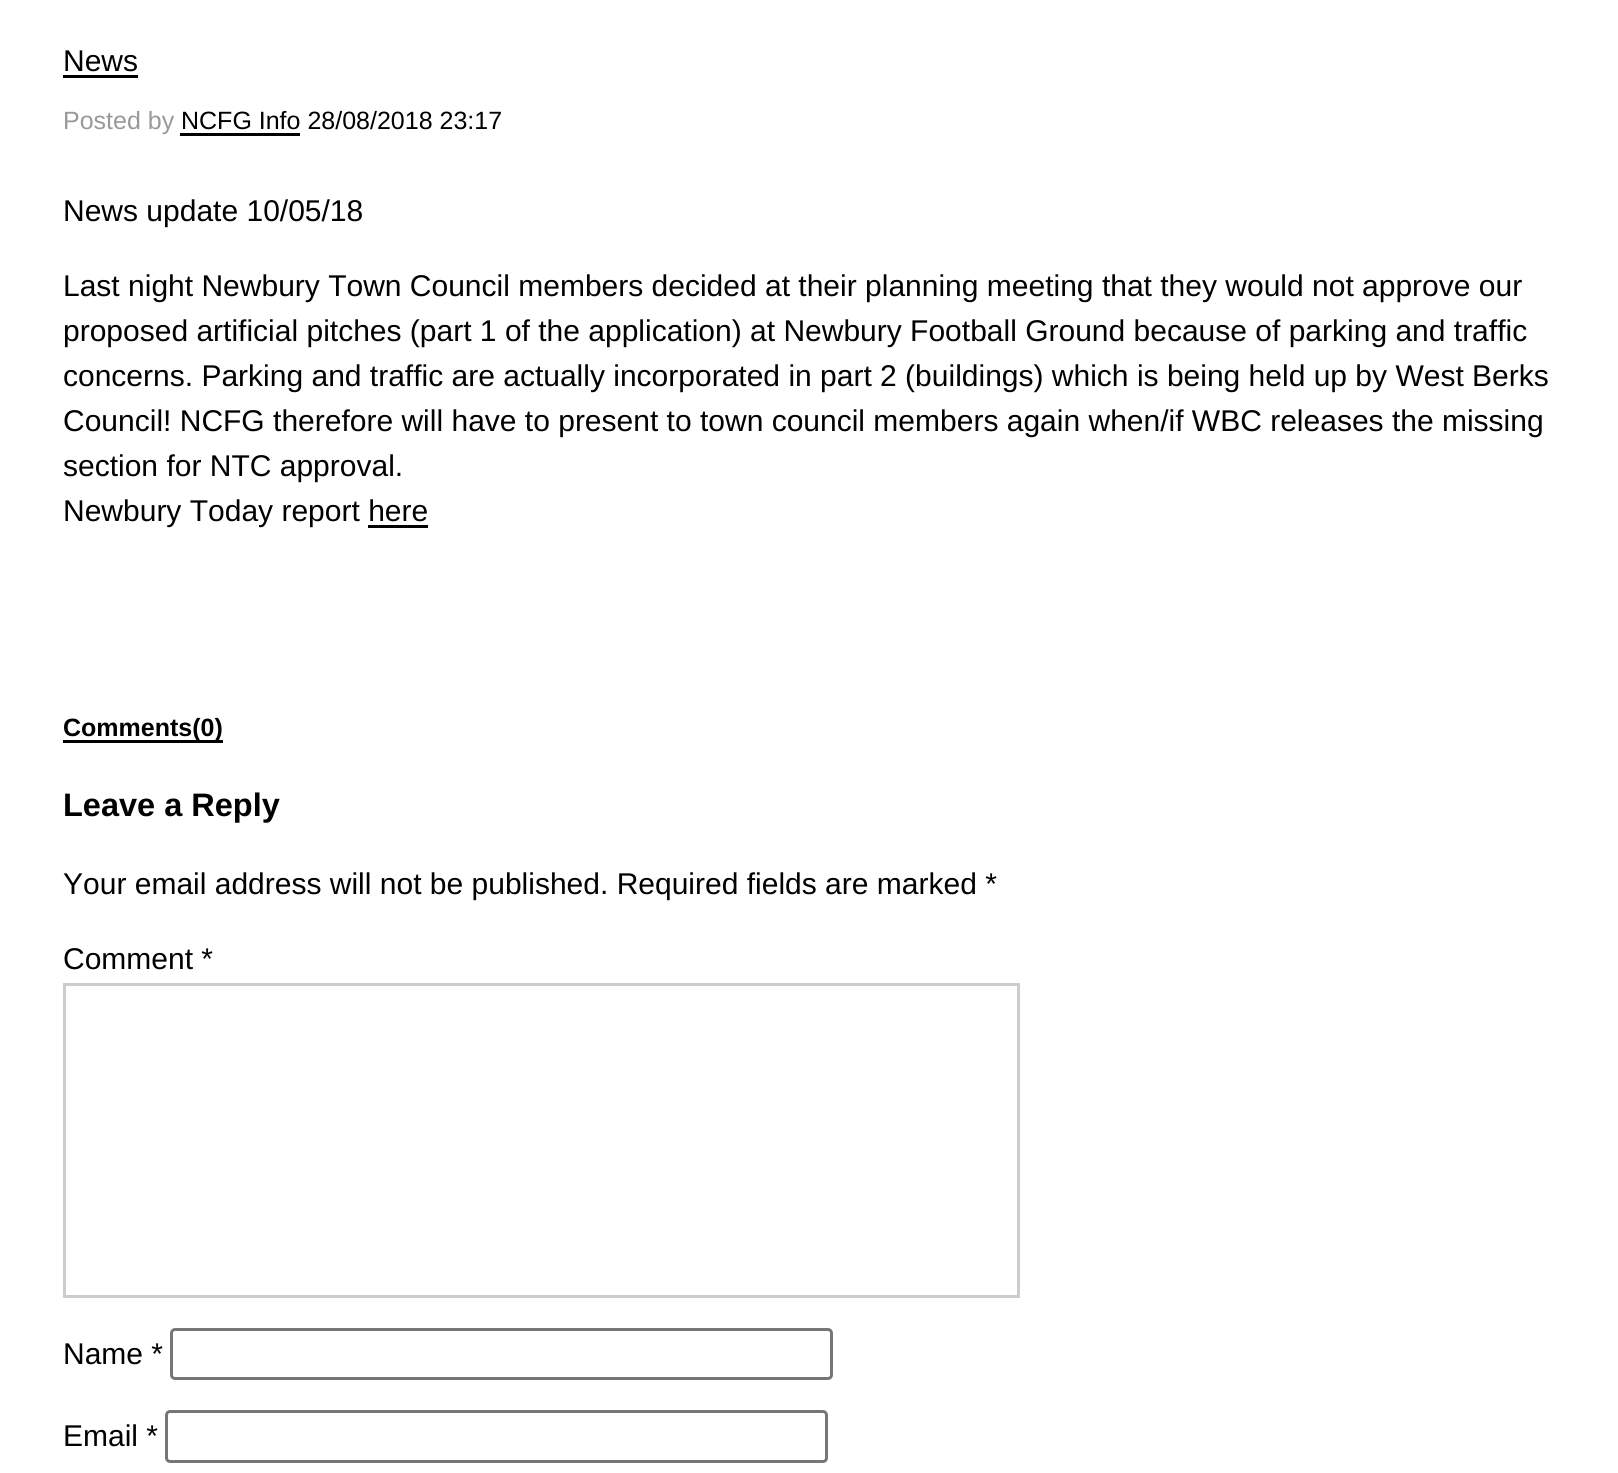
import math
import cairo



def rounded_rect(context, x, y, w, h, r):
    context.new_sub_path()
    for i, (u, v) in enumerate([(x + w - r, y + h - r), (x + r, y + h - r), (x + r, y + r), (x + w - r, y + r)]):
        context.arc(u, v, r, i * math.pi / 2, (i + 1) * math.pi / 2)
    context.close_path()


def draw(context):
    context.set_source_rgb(1, 1, 1)
    context.paint()
    context.set_source_rgb(0, 0, 0)
    context.rectangle(63, 75, 75, 3)
    context.fill()
    context.rectangle(180, 133, 120, 3)
    context.fill()
    context.rectangle(368, 525, 60, 3)
    context.fill()
    context.rectangle(63, 740, 160, 3)
    context.fill()
    context.rectangle(64.5, 984.5, 954, 312)
    context.set_source_rgb(204 / 255, 204 / 255, 204 / 255)
    context.set_line_width(3)
    context.stroke()
    rounded_rect(context, 171.5, 1329.5, 660, 49, 3.5)
    context.set_source_rgb(118 / 255, 118 / 255, 118 / 255)
    context.stroke()
    rounded_rect(context, 166.5, 1411.5, 660, 50, 3.5)
    context.stroke()
    context.select_font_face("Liberation Sans")
    context.set_font_size(30)
    context.set_source_rgb(0, 0, 0)
    context.move_to(63, 71)
    context.show_text("News")
    context.set_font_size(25)
    context.set_source_rgb(153 / 255, 153 / 255, 153 / 255)
    context.move_to(63, 129)
    context.show_text("Posted by")
    context.set_source_rgb(0, 0, 0)
    context.move_to(181, 129)
    context.show_text("NCFG Info 28/08/2018 23:17")
    context.set_font_size(30)
    context.move_to(63, 221)
    context.show_text("News update 10/05/18")
    context.move_to(63, 296)
    context.show_text("Last night Newbury Town Council members decided at their planning meeting that they would not approve our")
    context.move_to(63, 341)
    context.show_text("proposed artificial pitches (part 1 of the application) at Newbury Football Ground because of parking and traffic")
    context.move_to(63, 386)
    context.show_text("concerns. Parking and traffic are actually incorporated in part 2 (buildings) which is being held up by West Berks")
    context.move_to(63, 431)
    context.show_text("Council! NCFG therefore will have to present to town council members again when/if WBC releases the missing")
    context.move_to(63, 476)
    context.show_text("section for NTC approval.")
    context.move_to(63, 521)
    context.show_text("Newbury Today report here")
    context.select_font_face("Liberation Sans", cairo.FontSlant.NORMAL, cairo.FontWeight.BOLD)
    context.set_font_size(25)
    context.move_to(63, 736)
    context.show_text("Comments(0)")
    context.set_font_size(32.5)
    context.move_to(63, 816)
    context.show_text("Leave a Reply")
    context.select_font_face("Liberation Sans")
    context.set_font_size(30)
    context.move_to(63, 894)
    context.show_text("Your email address will not be published. Required fields are marked *")
    context.move_to(63, 969)
    context.show_text("Comment *")
    context.move_to(63, 1364)
    context.show_text("Name *")
    context.move_to(63, 1446)
    context.show_text("Email *")


surface = cairo.ImageSurface(cairo.Format.RGB24, 1618, 1473)
context = cairo.Context(surface)
options = cairo.FontOptions()
options.set_hint_metrics(cairo.HintMetrics.OFF)
options.set_hint_style(cairo.HintStyle.NONE)
context.set_font_options(options)
context.set_miter_limit(4)
draw(context)
surface.write_to_png("out.png")
